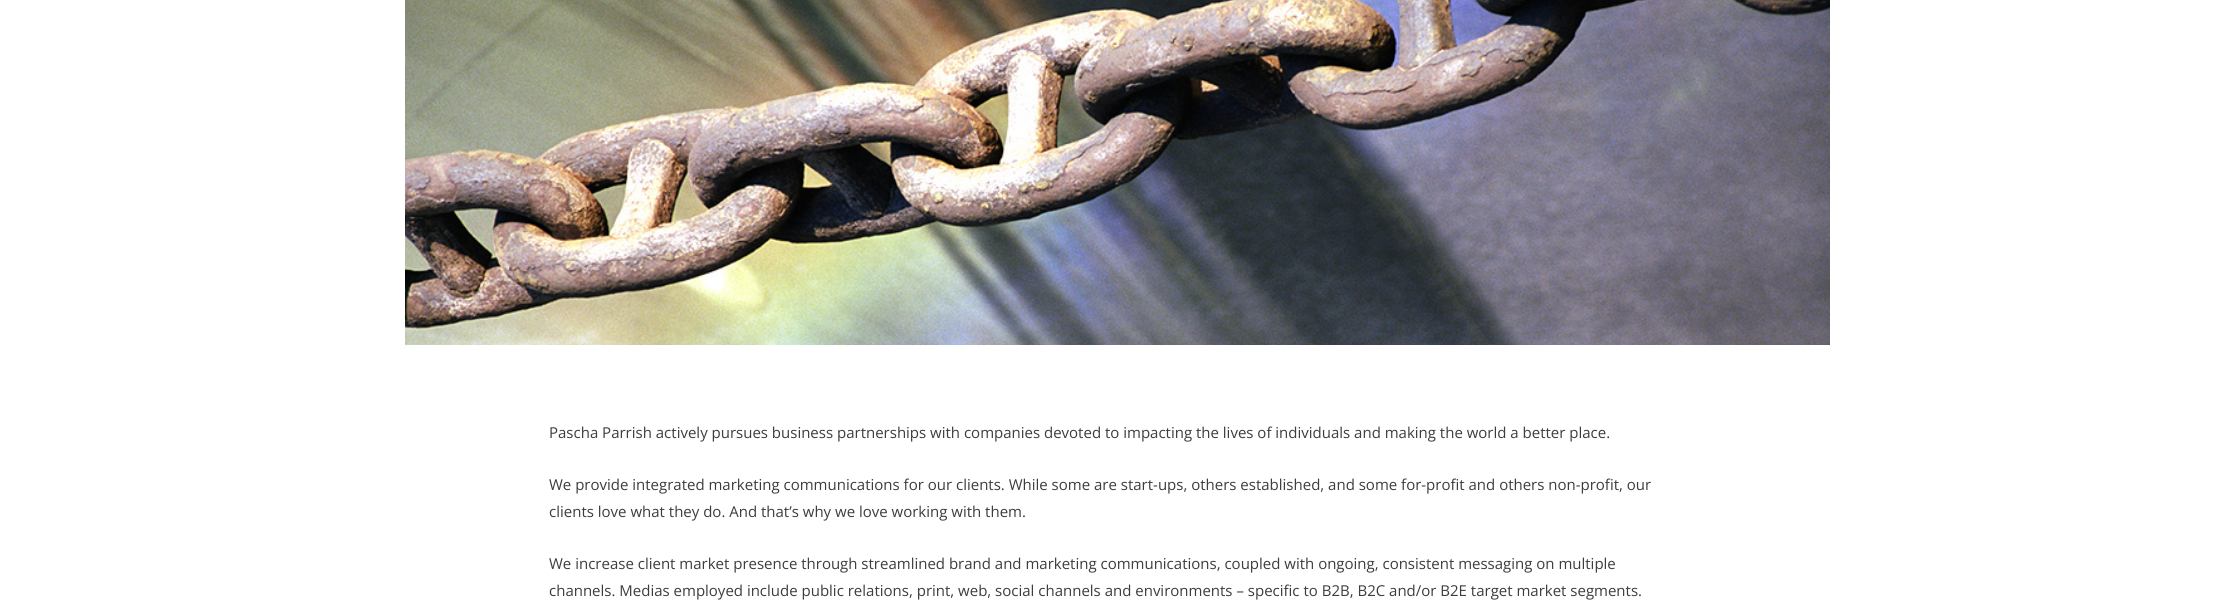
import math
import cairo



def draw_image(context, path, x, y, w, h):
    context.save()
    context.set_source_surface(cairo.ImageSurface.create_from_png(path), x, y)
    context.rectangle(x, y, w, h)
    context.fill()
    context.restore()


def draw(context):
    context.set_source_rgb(1, 1, 1)
    context.paint()
    draw_image(context, "images/1.png", 405, 0, 1425, 345)
    context.select_font_face("Open Sans")
    context.set_font_size(15)
    context.set_source_rgb(61 / 255, 61 / 255, 61 / 255)
    context.move_to(549, 438)
    context.show_text("Pascha Parrish actively pursues business partnerships with companies devoted to impacting the lives of individuals and making the world a better place.")
    context.move_to(549, 490)
    context.show_text("We provide integrated marketing communications for our clients. While some are start-ups, others established, and some for-profit and others non-profit, our")
    context.move_to(549, 517)
    context.show_text("clients love what they do. And that’s why we love working with them.")
    context.move_to(549, 569)
    context.show_text("We increase client market presence through streamlined brand and marketing communications, coupled with ongoing, consistent messaging on multiple")
    context.move_to(549, 596)
    context.show_text("channels. Medias employed include public relations, print, web, social channels and environments – specific to B2B, B2C and/or B2E target market segments.")


surface = cairo.ImageSurface(cairo.Format.RGB24, 2233, 607)
context = cairo.Context(surface)
options = cairo.FontOptions()
options.set_hint_metrics(cairo.HintMetrics.OFF)
options.set_hint_style(cairo.HintStyle.NONE)
context.set_font_options(options)
context.set_miter_limit(4)
draw(context)
surface.write_to_png("out.png")
